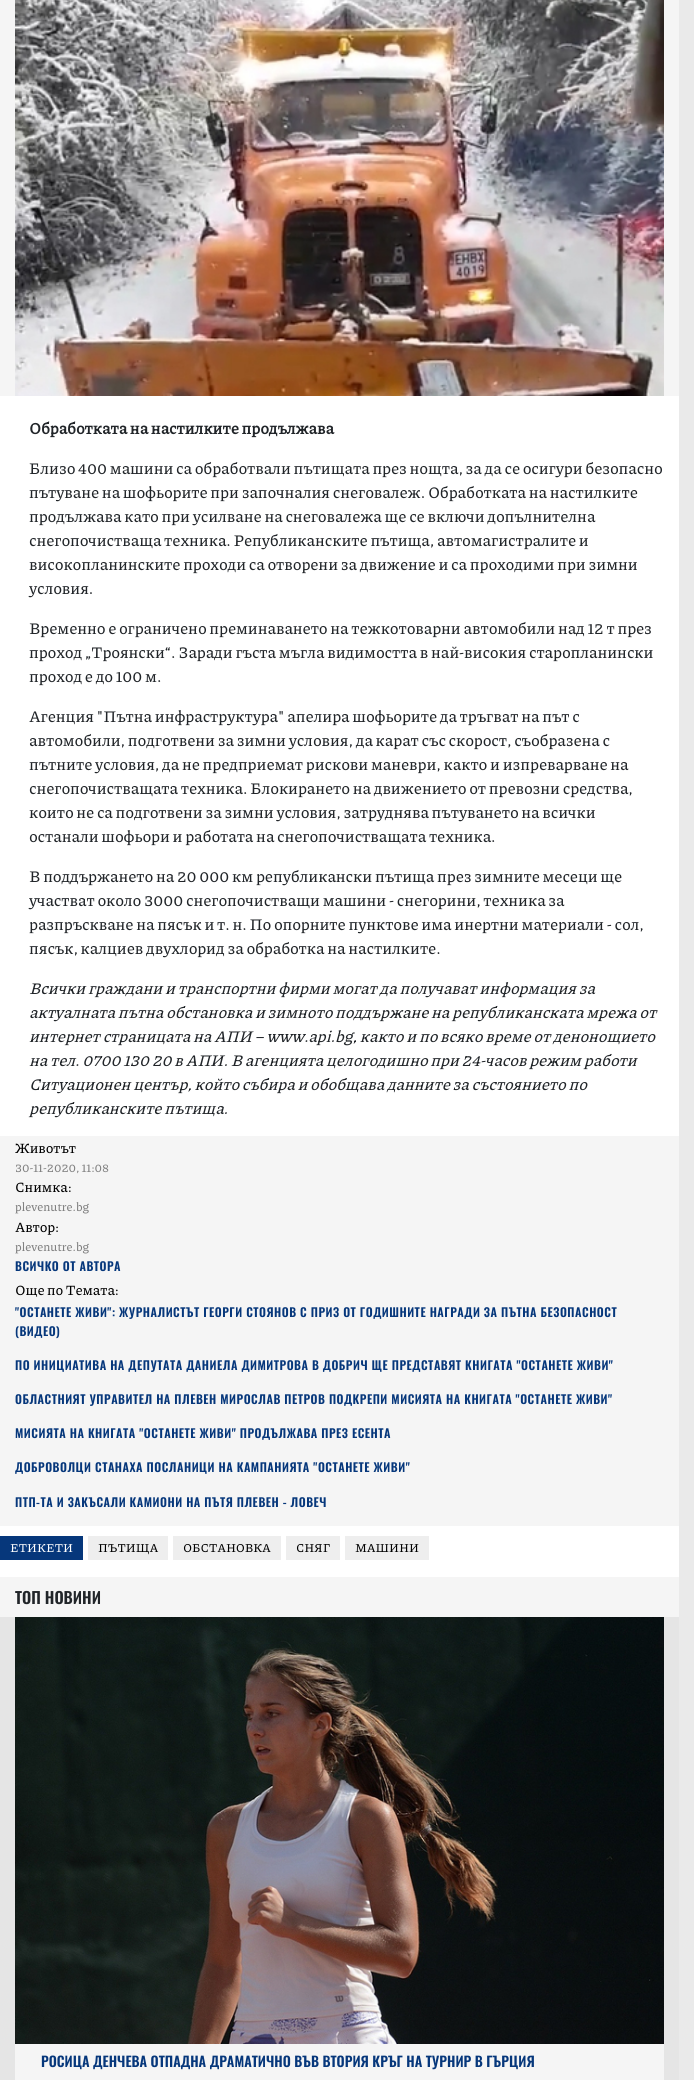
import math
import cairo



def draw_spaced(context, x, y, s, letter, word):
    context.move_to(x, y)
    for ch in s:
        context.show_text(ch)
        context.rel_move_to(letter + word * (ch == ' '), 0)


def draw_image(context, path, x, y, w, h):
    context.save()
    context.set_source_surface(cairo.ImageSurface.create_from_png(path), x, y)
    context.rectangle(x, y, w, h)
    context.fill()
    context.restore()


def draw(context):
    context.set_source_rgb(234 / 255, 234 / 255, 234 / 255)
    context.paint()
    context.set_source_rgb(1, 1, 1)
    context.rectangle(0, 396, 679, 1181)
    context.fill()
    context.set_source_rgb(245 / 255, 245 / 255, 245 / 255)
    context.rectangle(0, 0, 679, 396)
    context.fill()
    draw_image(context, "images/1.png", 15, 0, 649, 396)
    context.rectangle(0, 1136, 679, 390)
    context.fill()
    context.set_source_rgb(6 / 255, 55 / 255, 123 / 255)
    context.rectangle(0, 1536, 83, 24)
    context.fill()
    context.set_source_rgb(238 / 255, 238 / 255, 238 / 255)
    context.rectangle(88, 1536, 80, 24)
    context.fill()
    context.rectangle(173, 1536, 108, 24)
    context.fill()
    context.rectangle(286, 1536, 54, 24)
    context.fill()
    context.rectangle(345, 1536, 84, 24)
    context.fill()
    context.set_source_rgb(229 / 255, 229 / 255, 229 / 255)
    context.rectangle(0, 1617, 679, 463)
    context.fill()
    context.set_source_rgb(245 / 255, 245 / 255, 245 / 255)
    context.rectangle(0, 1577, 679, 40)
    context.fill()
    draw_image(context, "images/2.png", 15, 1617, 649, 427)
    context.rectangle(15, 2044, 649, 36)
    context.fill()
    context.select_font_face("Piazzolla", cairo.FontSlant.NORMAL, cairo.FontWeight.BOLD)
    context.set_font_size(16)
    context.set_source_rgb(33 / 255, 37 / 255, 41 / 255)
    context.move_to(29, 434)
    context.show_text("Обработката на настилките продължава")
    context.select_font_face("Piazzolla Thin")
    context.move_to(29, 474)
    context.show_text("Близо 400 машини са обработвали пътищата през нощта, за да се осигури безопасно")
    context.move_to(29, 498)
    context.show_text("пътуване на шофьорите при започналия снеговалеж. Обработката на настилките")
    context.move_to(29, 522)
    context.show_text("продължава като при усилване на снеговалежа ще се включи допълнителна")
    context.move_to(29, 546)
    context.show_text("снегопочистваща техника. Републиканските пътища, автомагистралите и")
    context.move_to(29, 570)
    context.show_text("високопланинските проходи са отворени за движение и са проходими при зимни")
    context.move_to(29, 594)
    context.show_text("условия.")
    context.move_to(29, 634)
    context.show_text("Временно е ограничено преминаването на тежкотоварни автомобили над 12 т през")
    context.move_to(29, 658)
    context.show_text("проход „Троянски“. Заради гъста мъгла видимостта в най-високия старопланински")
    context.move_to(29, 682)
    context.show_text("проход е до 100 м.")
    context.move_to(29, 722)
    context.show_text("Агенция \"Пътна инфраструктура\" апелира шофьорите да тръгват на път с")
    context.move_to(29, 746)
    context.show_text("автомобили, подготвени за зимни условия, да карат със скорост, съобразена с")
    context.move_to(29, 770)
    context.show_text("пътните условия, да не предприемат рискови маневри, както и изпреварване на")
    context.move_to(29, 794)
    context.show_text("снегопочистващата техника. Блокирането на движението от превозни средства,")
    context.move_to(29, 818)
    context.show_text("които не са подготвени за зимни условия, затруднява пътуването на всички")
    context.move_to(29, 842)
    context.show_text("останали шофьори и работата на снегопочистващата техника.")
    context.move_to(29, 882)
    context.show_text("В поддържането на 20 000 км републикански пътища през зимните месеци ще")
    context.move_to(29, 906)
    context.show_text("участват около 3000 снегопочистващи машини - снегорини, техника за")
    context.move_to(29, 930)
    context.show_text("разпръскване на пясък и т. н. По опорните пунктове има инертни материали - сол,")
    context.move_to(29, 954)
    context.show_text("пясък, калциев двухлорид за обработка на настилките.")
    context.select_font_face("Piazzolla Thin", cairo.FontSlant.ITALIC)
    context.move_to(29, 994)
    context.show_text("Всички граждани и транспортни фирми могат да получават информация за")
    context.move_to(29, 1018)
    context.show_text("актуалната пътна обстановка и зимното поддържане на републиканската мрежа от")
    context.move_to(29, 1042)
    context.show_text("интернет страницата на АПИ – www.api.bg, както и по всяко време от денонощието")
    context.move_to(29, 1066)
    context.show_text("на тел. 0700 130 20 в АПИ. В агенцията целогодишно при 24-часов режим работи")
    context.move_to(29, 1090)
    context.show_text("Ситуационен център, който събира и обобщава данните за състоянието по")
    context.move_to(29, 1114)
    context.show_text("републиканските пътища.")
    context.select_font_face("Piazzolla Thin")
    context.set_font_size(14)
    context.set_source_rgb(0, 0, 0)
    context.move_to(15, 1153)
    context.show_text("Животът")
    context.set_font_size(12)
    context.set_source_rgb(128 / 255, 128 / 255, 128 / 255)
    context.move_to(15, 1172)
    context.show_text("30-11-2020, 11:08")
    context.set_font_size(14)
    context.set_source_rgb(0, 0, 0)
    context.move_to(15, 1192)
    context.show_text("Снимка:")
    context.set_font_size(12)
    context.set_source_rgb(128 / 255, 128 / 255, 128 / 255)
    context.move_to(15, 1211)
    context.show_text("plevenutre.bg")
    context.set_font_size(14)
    context.set_source_rgb(0, 0, 0)
    context.move_to(15, 1232)
    context.show_text("Автор:")
    context.set_font_size(12)
    context.set_source_rgb(128 / 255, 128 / 255, 128 / 255)
    context.move_to(15, 1251)
    context.show_text("plevenutre.bg")
    context.select_font_face("Oswald SemiBold")
    context.set_source_rgb(6 / 255, 55 / 255, 123 / 255)
    draw_spaced(context, 15, 1271, "ВСИЧКО ОТ АВТОРА", 0.5, 0)
    context.select_font_face("Piazzolla Thin")
    context.set_font_size(14)
    context.set_source_rgb(0, 0, 0)
    context.move_to(15, 1295)
    context.show_text("Още по Темата:")
    context.select_font_face("Oswald SemiBold")
    context.set_font_size(12)
    context.set_source_rgb(6 / 255, 55 / 255, 123 / 255)
    draw_spaced(context, 15, 1317, "\"ОСТАНЕТЕ ЖИВИ\": ЖУРНАЛИСТЪТ ГЕОРГИ СТОЯНОВ С ПРИЗ ОТ ГОДИШНИТЕ НАГРАДИ ЗА ПЪТНА БЕЗОПАСНОСТ", 0.5, 0)
    draw_spaced(context, 15, 1336, "(ВИДЕО)", 0.5, 0)
    draw_spaced(context, 15, 1370, "ПО ИНИЦИАТИВА НА ДЕПУТАТА ДАНИЕЛА ДИМИТРОВА В ДОБРИЧ ЩЕ ПРЕДСТАВЯТ КНИГАТА \"ОСТАНЕТЕ ЖИВИ\"", 0.5, 0)
    draw_spaced(context, 15, 1404, "ОБЛАСТНИЯТ УПРАВИТЕЛ НА ПЛЕВЕН МИРОСЛАВ ПЕТРОВ ПОДКРЕПИ МИСИЯТА НА КНИГАТА \"ОСТАНЕТЕ ЖИВИ\"", 0.5, 0)
    draw_spaced(context, 15, 1438, "МИСИЯТА НА КНИГАТА \"ОСТАНЕТЕ ЖИВИ\" ПРОДЪЛЖАВА ПРЕЗ ЕСЕНТА", 0.5, 0)
    draw_spaced(context, 15, 1472, "ДОБРОВОЛЦИ СТАНАХА ПОСЛАНИЦИ НА КАМПАНИЯТА \"ОСТАНЕТЕ ЖИВИ\"", 0.5, 0)
    draw_spaced(context, 15, 1507, "ПТП-ТА И ЗАКЪСАЛИ КАМИОНИ НА ПЪТЯ ПЛЕВЕН - ЛОВЕЧ", 0.5, 0)
    context.select_font_face("Piazzolla Thin")
    context.set_source_rgb(1, 1, 1)
    context.move_to(10, 1552)
    context.show_text("ЕТИКЕТИ")
    context.set_source_rgb(0, 0, 0)
    context.move_to(98, 1552)
    context.show_text("ПЪТИЩА")
    context.move_to(183, 1552)
    context.show_text("ОБСТАНОВКА")
    context.move_to(296, 1552)
    context.show_text("СНЯГ")
    context.move_to(355, 1552)
    context.show_text("МАШИНИ")
    context.select_font_face("Oswald SemiBold")
    context.set_font_size(16)
    context.set_source_rgb(33 / 255, 37 / 255, 41 / 255)
    context.move_to(15, 1604)
    context.show_text("ТОП НОВИНИ")
    context.set_font_size(14)
    context.set_source_rgb(6 / 255, 55 / 255, 123 / 255)
    context.move_to(41, 2067)
    context.show_text("РОСИЦА ДЕНЧЕВА ОТПАДНА ДРАМАТИЧНО ВЪВ ВТОРИЯ КРЪГ НА ТУРНИР В ГЪРЦИЯ")


surface = cairo.ImageSurface(cairo.Format.RGB24, 694, 2080)
context = cairo.Context(surface)
options = cairo.FontOptions()
options.set_hint_metrics(cairo.HintMetrics.OFF)
options.set_hint_style(cairo.HintStyle.NONE)
context.set_font_options(options)
context.set_miter_limit(4)
draw(context)
surface.write_to_png("out.png")
